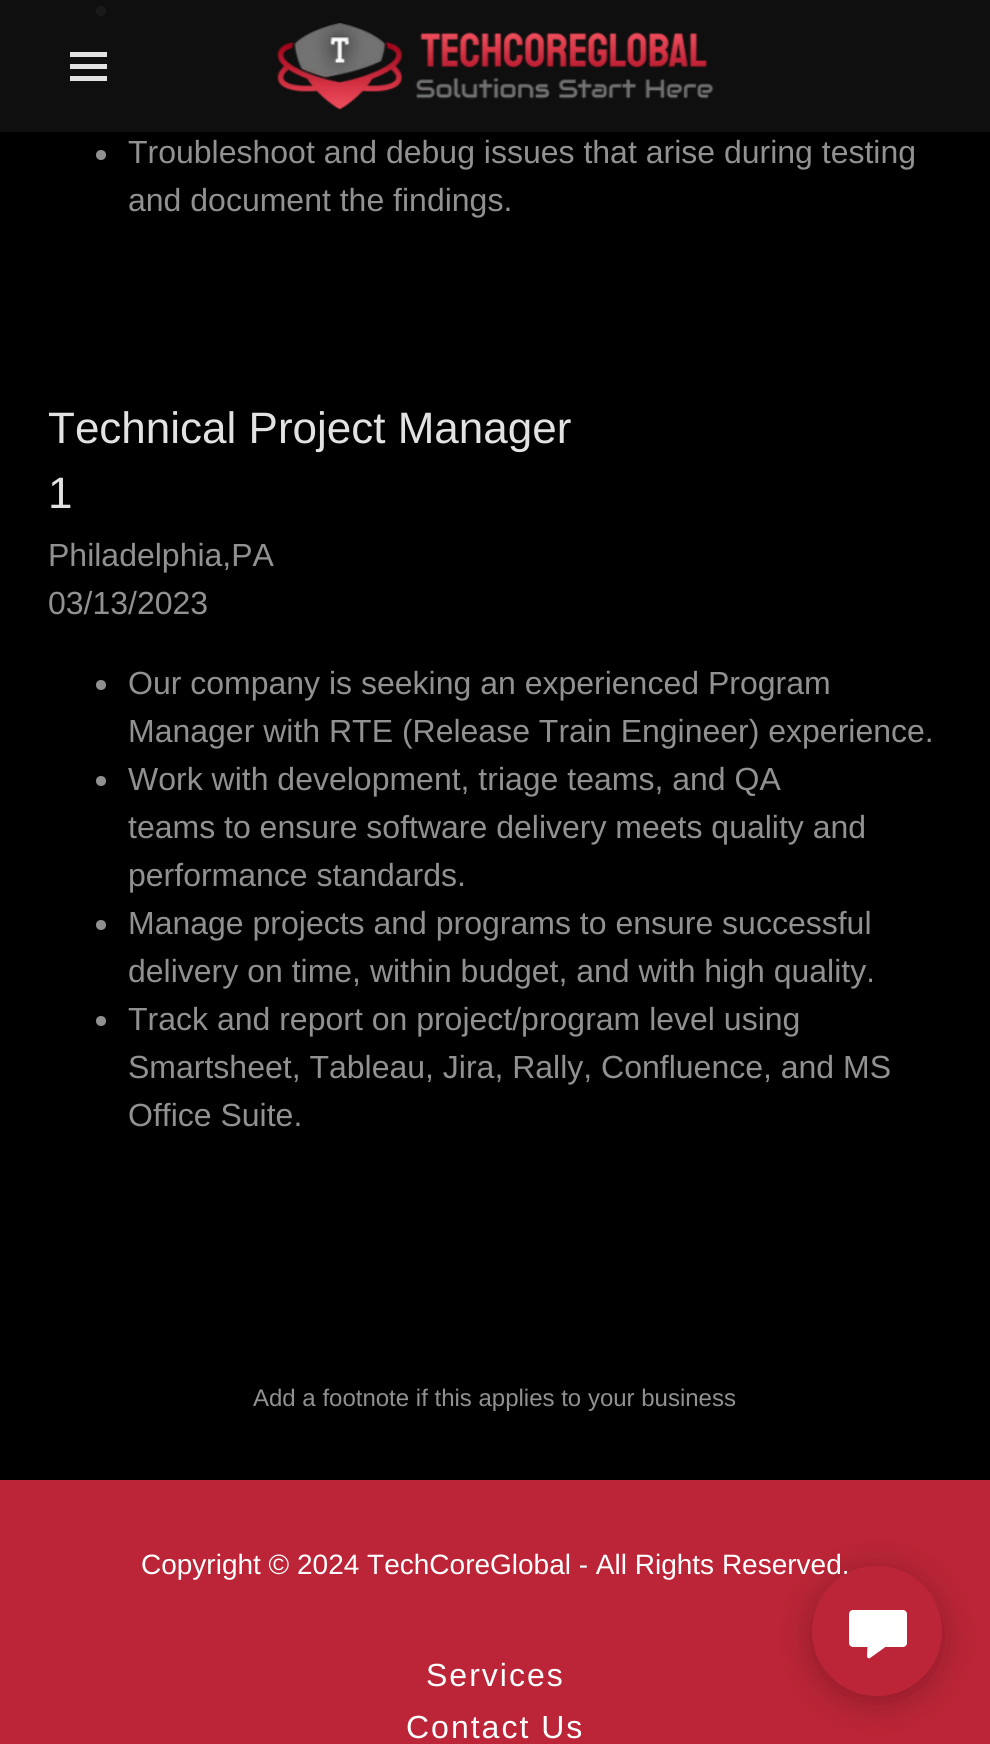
import math
import cairo



def draw_spaced(context, x, y, s, letter, word):
    context.move_to(x, y)
    for ch in s:
        context.show_text(ch)
        context.rel_move_to(letter + word * (ch == ' '), 0)


def rounded_rect(context, x, y, w, h, r):
    context.new_sub_path()
    for i, (u, v) in enumerate([(x + w - r, y + h - r), (x + r, y + h - r), (x + r, y + r), (x + w - r, y + r)]):
        context.arc(u, v, r, i * math.pi / 2, (i + 1) * math.pi / 2)
    context.close_path()


def draw_shadow(context, x, y, w, h, r, blur, alpha):
    context.push_group_with_content(cairo.Content.ALPHA)
    context.set_operator(cairo.Operator.SOURCE)
    for i in range(15, -16, -2):
        e = blur * i / 6
        if min(w, h) + 2 * e > 0:
            context.set_source_rgba(0, 0, 0, alpha * math.erfc((i - 1) / 8.5) / 2)
            rounded_rect(context, x - e, y - e, w + 2 * e, h + 2 * e, max(0, min(r + e + blur * .6, min(w, h) / 2 + e)))
            context.fill()
    context.mask(context.pop_group())


def draw_image(context, path, x, y, w, h):
    context.save()
    context.set_source_surface(cairo.ImageSurface.create_from_png(path), x, y)
    context.rectangle(x, y, w, h)
    context.fill()
    context.restore()


def draw(context):
    context.set_source_rgb(188 / 255, 37 / 255, 55 / 255)
    context.paint()
    context.set_source_rgb(15 / 255, 15 / 255, 15 / 255)
    context.rectangle(0, 0, 990, 132)
    context.fill()
    context.set_source_rgb(226 / 255, 226 / 255, 226 / 255)
    context.rectangle(70, 52, 37, 5)
    context.fill()
    context.rectangle(70, 64, 37, 5)
    context.fill()
    context.rectangle(70, 76, 37, 5)
    context.fill()
    draw_image(context, "images/1.png", 276, 23, 438, 87)
    context.set_source_rgb(0, 0, 0)
    context.rectangle(0, 132, 990, 1348)
    context.fill()
    context.set_source_rgb(26 / 255, 26 / 255, 26 / 255)
    context.arc(101, 11, 5, 0, 2 * math.pi)
    context.fill()
    context.set_source_rgb(145 / 255, 145 / 255, 145 / 255)
    context.arc(101, 155, 5, 0, 2 * math.pi)
    context.fill()
    context.arc(101, 685, 5, 0, 2 * math.pi)
    context.fill()
    context.arc(101, 781, 5, 0, 2 * math.pi)
    context.fill()
    context.arc(101, 925, 5, 0, 2 * math.pi)
    context.fill()
    context.arc(101, 1021, 5, 0, 2 * math.pi)
    context.fill()
    context.set_source_rgb(0, 0, 0)
    draw_shadow(context, 812, 1572, 130, 130, 65, 18, 0.25)
    context.select_font_face("Liberation Sans")
    context.set_font_size(32)
    context.set_source_rgb(145 / 255, 145 / 255, 145 / 255)
    context.move_to(128, 163)
    context.show_text("Troubleshoot and debug issues that arise during testing")
    context.move_to(128, 211)
    context.show_text("and document the findings.")
    context.set_font_size(44)
    context.set_source_rgb(226 / 255, 226 / 255, 226 / 255)
    context.move_to(48, 443)
    context.show_text("Technical Project Manager")
    context.move_to(48, 508)
    context.show_text("1")
    context.set_font_size(32)
    context.set_source_rgb(145 / 255, 145 / 255, 145 / 255)
    context.move_to(48, 566)
    context.show_text("Philadelphia,PA")
    context.move_to(48, 614)
    context.show_text("03/13/2023")
    context.move_to(128, 694)
    context.show_text("Our company is seeking an experienced Program")
    context.move_to(128, 742)
    context.show_text("Manager with RTE (Release Train Engineer) experience.")
    context.move_to(128, 790)
    context.show_text("Work with development, triage teams, and QA")
    context.move_to(128, 838)
    context.show_text("teams to ensure software delivery meets quality and")
    context.move_to(128, 886)
    context.show_text("performance standards.")
    context.move_to(128, 934)
    context.show_text("Manage projects and programs to ensure successful")
    context.move_to(128, 982)
    context.show_text("delivery on time, within budget, and with high quality.")
    context.move_to(128, 1030)
    context.show_text("Track and report on project/program level using")
    context.move_to(128, 1078)
    context.show_text("Smartsheet, Tableau, Jira, Rally, Confluence, and MS")
    context.move_to(128, 1126)
    context.show_text("Office Suite.")
    context.set_font_size(24)
    context.move_to(253, 1406)
    context.show_text("Add a footnote if this applies to your business")
    context.set_font_size(28)
    context.set_source_rgb(1, 1, 1)
    context.move_to(141, 1574)
    context.show_text("Copyright © 2024 TechCoreGlobal - All Rights Reserved.")
    context.set_font_size(32)
    draw_spaced(context, 426, 1686, "Services", 2, 0)
    draw_spaced(context, 406, 1738, "Contact Us", 2, 0)
    context.set_source_rgb(188 / 255, 37 / 255, 55 / 255)
    context.new_path()
    context.arc(877, 1631, 65, 0, 2 * math.pi)
    context.fill()
    context.set_source_rgb(1, 1, 1)
    rounded_rect(context, 849, 1610, 58, 37, 4)
    context.fill()
    context.new_path()
    context.move_to(867, 1656)
    context.line_to(867.5, 1646)
    context.curve_to(867.5, 1645, 868.5, 1644, 869.5, 1644)
    context.line_to(883, 1644)
    context.curve_to(885, 1644, 886, 1647, 884, 1648)
    context.line_to(870, 1658)
    context.curve_to(869.5, 1658.5, 868.5, 1658.5, 868, 1658)
    context.curve_to(867.5, 1657.5, 867, 1657, 867, 1656)
    context.close_path()
    context.fill()


surface = cairo.ImageSurface(cairo.Format.RGB24, 990, 1744)
context = cairo.Context(surface)
options = cairo.FontOptions()
options.set_hint_metrics(cairo.HintMetrics.OFF)
options.set_hint_style(cairo.HintStyle.NONE)
context.set_font_options(options)
context.set_miter_limit(4)
draw(context)
surface.write_to_png("out.png")
